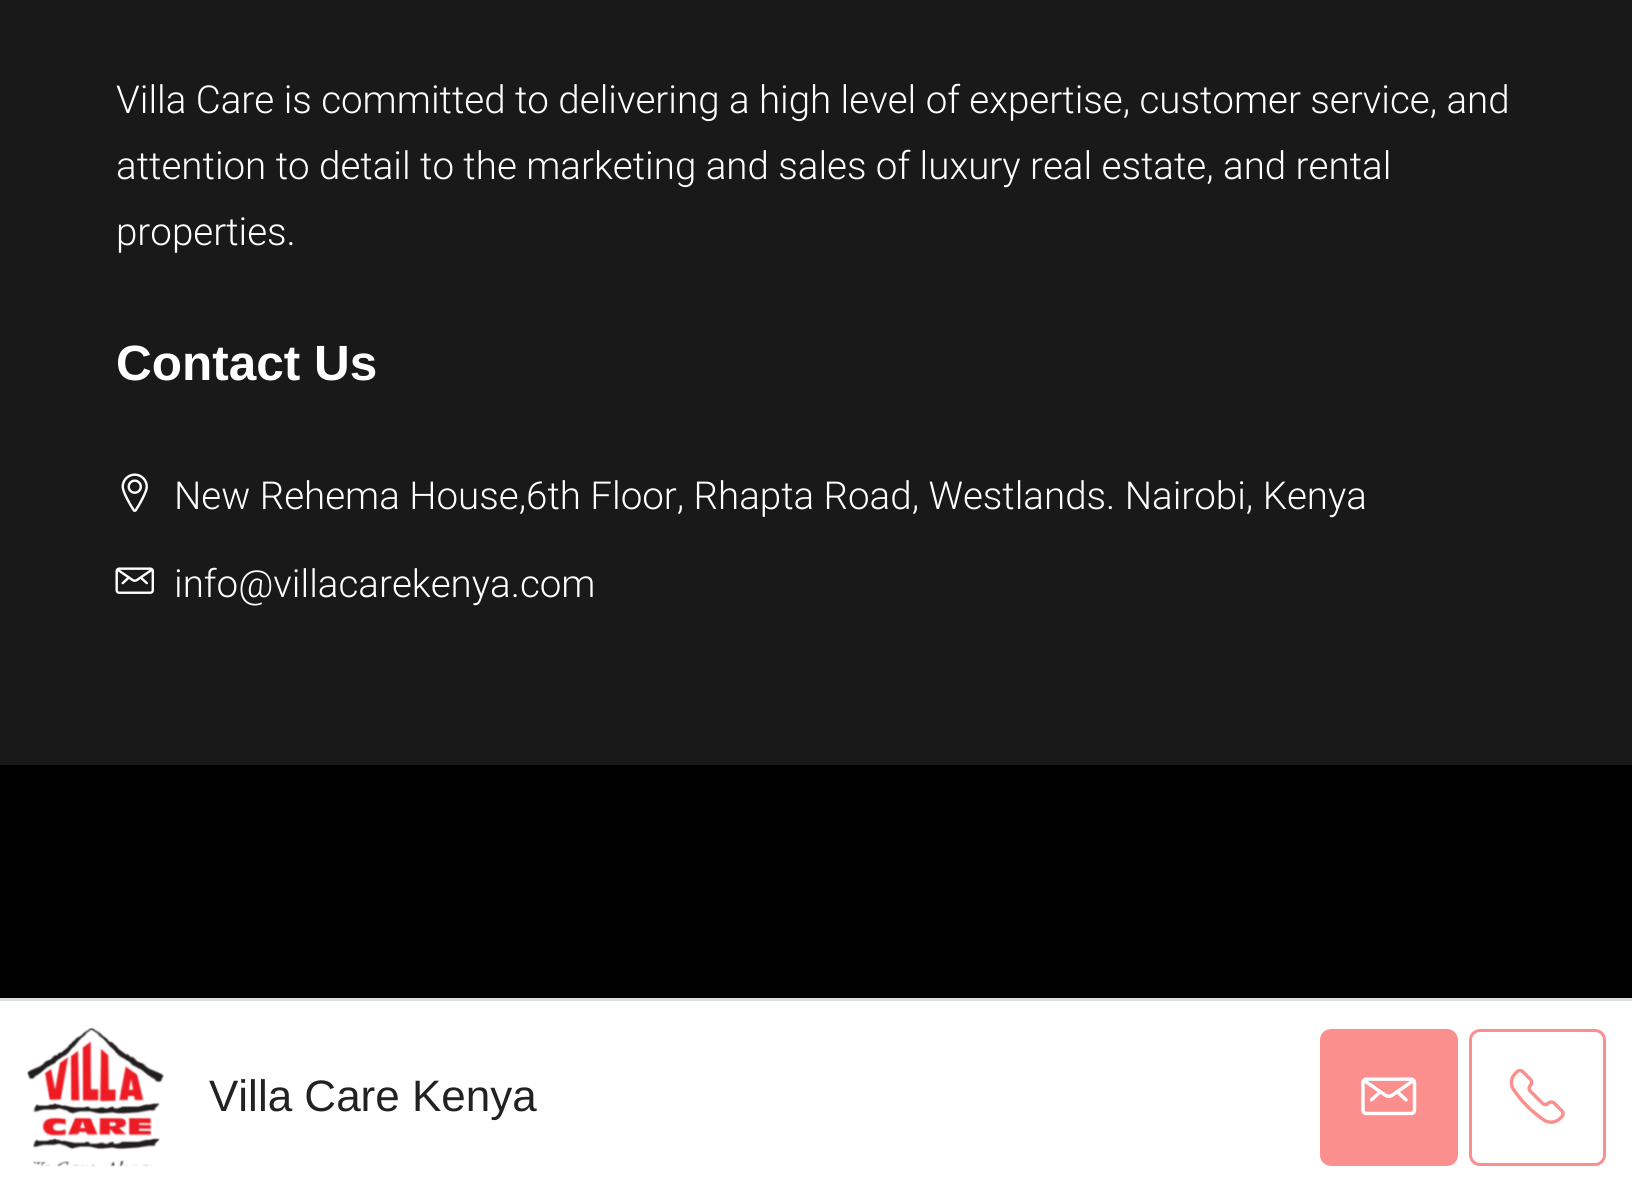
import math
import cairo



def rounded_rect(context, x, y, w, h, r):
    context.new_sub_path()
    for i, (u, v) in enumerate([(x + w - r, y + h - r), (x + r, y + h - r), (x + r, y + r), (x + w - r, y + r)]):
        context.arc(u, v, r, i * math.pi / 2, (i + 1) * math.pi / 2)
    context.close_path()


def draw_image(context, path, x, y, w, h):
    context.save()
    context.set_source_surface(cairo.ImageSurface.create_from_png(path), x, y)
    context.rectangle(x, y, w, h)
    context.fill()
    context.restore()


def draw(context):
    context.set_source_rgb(25 / 255, 25 / 255, 25 / 255)
    context.paint()
    draw_image(context, "images/1.png", 121, 473, 27, 39)
    draw_image(context, "images/2.png", 115, 567, 39, 27)
    context.set_source_rgb(0, 0, 0)
    context.rectangle(0, 765, 1632, 233)
    context.fill()
    context.set_source_rgb(1, 1, 1)
    context.rectangle(0, 1001, 1632, 190)
    context.fill()
    context.set_source_rgb(220 / 255, 224 / 255, 224 / 255)
    context.rectangle(0, 998, 1632, 3)
    context.fill()
    draw_image(context, "images/3.png", 27, 1028, 138, 139)
    context.set_source_rgb(250 / 255, 143 / 255, 141 / 255)
    rounded_rect(context, 1321.5, 1030.5, 135, 134, 9.5)
    context.fill_preserve()
    context.set_line_width(3)
    context.stroke()
    draw_image(context, "images/4.png", 1361, 1077, 56, 39)
    rounded_rect(context, 1470.5, 1030.5, 134, 134, 9.5)
    context.stroke()
    draw_image(context, "images/5.png", 1509, 1068, 56, 56)
    context.select_font_face("Roboto Light")
    context.set_font_size(38.5)
    context.set_source_rgb(1, 1, 1)
    context.move_to(116, 113)
    context.show_text("Villa Care is committed to delivering a high level of expertise, customer service, and")
    context.move_to(116, 179)
    context.show_text("attention to detail to the marketing and sales of luxury real estate, and rental")
    context.move_to(116, 245)
    context.show_text("properties.")
    context.select_font_face("Liberation Sans", cairo.FontSlant.NORMAL, cairo.FontWeight.BOLD)
    context.set_font_size(49.5)
    context.move_to(116, 380)
    context.show_text("Contact Us")
    context.select_font_face("Roboto Light")
    context.set_font_size(38.5)
    context.move_to(174, 509)
    context.show_text("New Rehema House,6th Floor, Rhapta Road, Westlands. Nairobi, Kenya")
    context.move_to(174, 597)
    context.show_text("info@villacarekenya.com")
    context.select_font_face("Liberation Sans")
    context.set_font_size(44)
    context.set_source_rgb(34 / 255, 34 / 255, 34 / 255)
    context.move_to(209, 1111)
    context.show_text("Villa Care Kenya")


surface = cairo.ImageSurface(cairo.Format.RGB24, 1632, 1191)
context = cairo.Context(surface)
options = cairo.FontOptions()
options.set_hint_metrics(cairo.HintMetrics.OFF)
options.set_hint_style(cairo.HintStyle.NONE)
context.set_font_options(options)
context.set_miter_limit(4)
draw(context)
surface.write_to_png("out.png")
